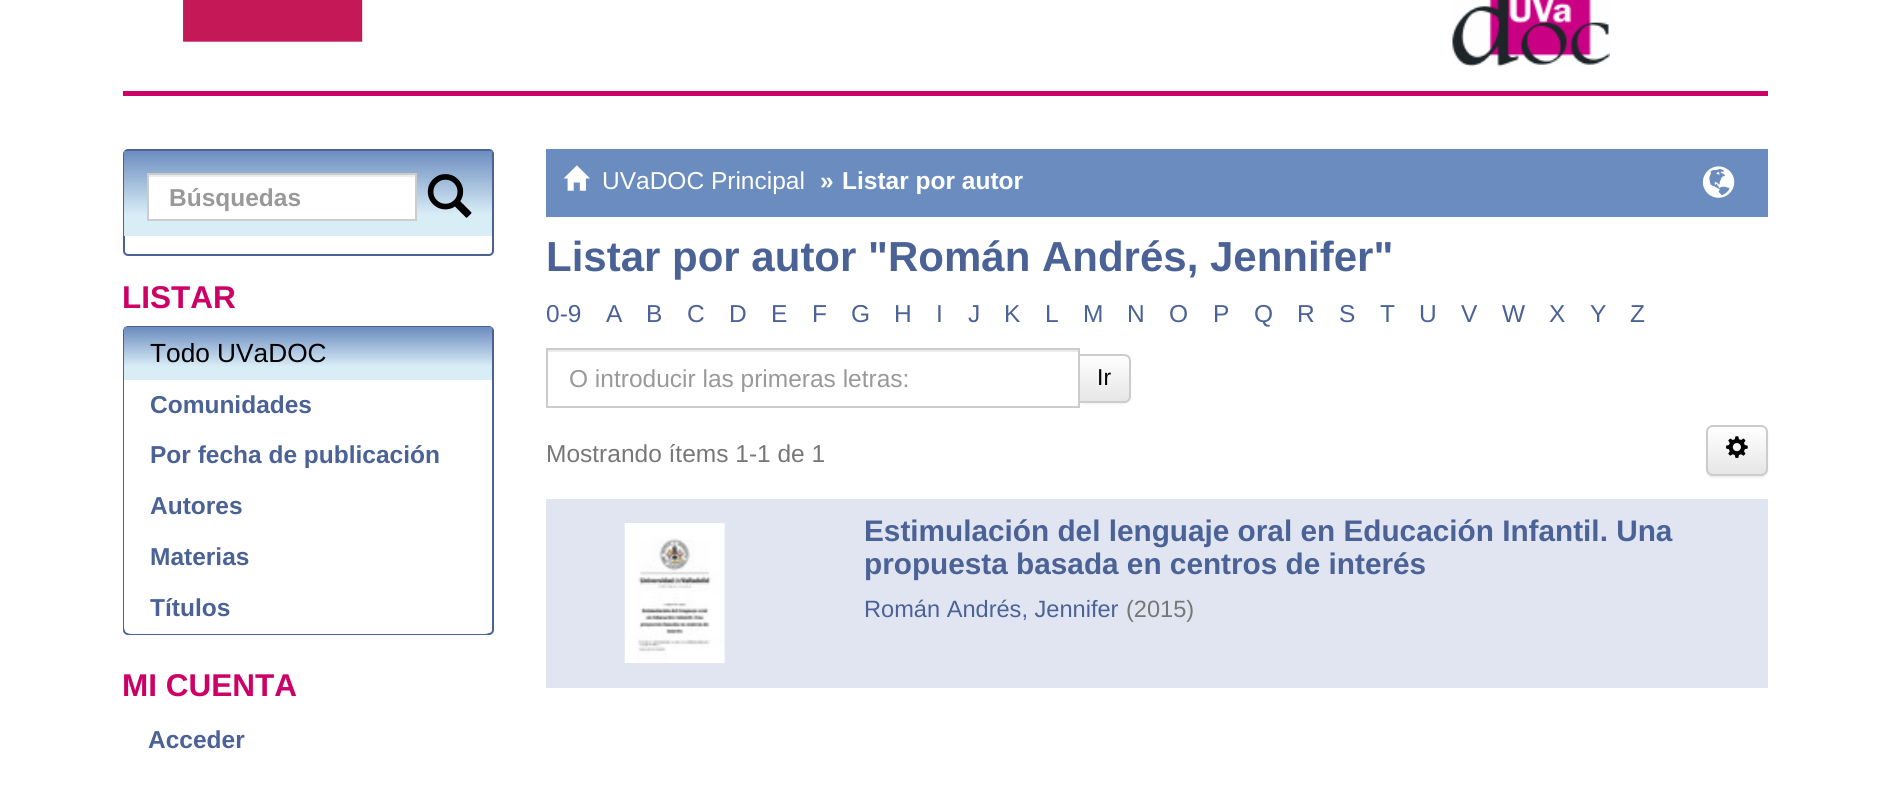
import math
import cairo



def rounded_rect(context, x, y, w, h, r):
    context.new_sub_path()
    for i, (u, v) in enumerate([(x + w - r, y + h - r), (x + r, y + h - r), (x + r, y + r), (x + w - r, y + r)]):
        context.arc(u, v, r, i * math.pi / 2, (i + 1) * math.pi / 2)
    context.close_path()


def draw_shadow(context, x, y, w, h, r, blur, alpha):
    context.push_group_with_content(cairo.Content.ALPHA)
    context.set_operator(cairo.Operator.SOURCE)
    for i in range(15, -16, -2):
        e = blur * i / 6
        if min(w, h) + 2 * e > 0:
            context.set_source_rgba(0, 0, 0, alpha * math.erfc((i - 1) / 8.5) / 2)
            rounded_rect(context, x - e, y - e, w + 2 * e, h + 2 * e, max(0, min(r + e + blur * .6, min(w, h) / 2 + e)))
            context.fill()
    context.mask(context.pop_group())


def draw_image(context, path, x, y, w, h):
    context.save()
    context.set_source_surface(cairo.ImageSurface.create_from_png(path), x, y)
    context.rectangle(x, y, w, h)
    context.fill()
    context.restore()


def draw(context):
    context.set_source_rgb(1, 1, 1)
    context.paint()
    context.set_source_rgb(204 / 255, 0, 102 / 255)
    context.rectangle(123, 91, 1645, 5)
    context.fill()
    draw_image(context, "images/1.png", 180, 0, 188, 48)
    draw_image(context, "images/2.png", 1452, 0, 158, 67)
    rounded_rect(context, 124, 150, 369, 105, 4)
    context.set_source_rgb(75 / 255, 98 / 255, 150 / 255)
    context.stroke()
    gradient = cairo.LinearGradient(308, 150, 308, 236)
    gradient.add_color_stop_rgba(0, 106 / 255, 140 / 255, 190 / 255, 1)
    gradient.add_color_stop_rgba(0.75, 217 / 255, 237 / 255, 247 / 255, 1)
    context.set_source(gradient)
    context.rectangle(124, 151, 368, 85)
    context.fill()
    context.set_source_rgb(1, 1, 1)
    context.rectangle(149, 177, 266, 42)
    context.fill()
    context.set_source_rgb(236 / 255, 236 / 255, 236 / 255)
    context.rectangle(149, 175, 266, 2)
    context.fill()
    context.rectangle(148, 174, 268, 46)
    context.set_source_rgb(204 / 255, 204 / 255, 204 / 255)
    context.stroke()
    draw_image(context, "images/3.png", 427, 174, 45, 44)
    rounded_rect(context, 124, 327, 369, 307, 4)
    context.set_source_rgb(75 / 255, 98 / 255, 150 / 255)
    context.stroke()
    gradient = cairo.LinearGradient(308, 327, 308, 380)
    gradient.add_color_stop_rgba(0, 106 / 255, 140 / 255, 190 / 255, 1)
    gradient.add_color_stop_rgba(0.75, 217 / 255, 237 / 255, 247 / 255, 1)
    context.set_source(gradient)
    context.rectangle(124, 327, 368, 53)
    context.fill()
    context.set_source_rgb(1, 1, 1)
    context.rectangle(124, 380, 1, 201)
    context.fill()
    context.new_path()
    context.move_to(124, 581)
    context.line_to(492, 581)
    context.line_to(492, 627)
    context.curve_to(492, 631, 489, 634, 485, 634)
    context.line_to(131, 634)
    context.curve_to(127, 634, 124, 631, 124, 627)
    context.close_path()
    context.fill()
    context.set_source_rgb(106 / 255, 140 / 255, 190 / 255)
    context.rectangle(546, 149, 1222, 68)
    context.fill()
    draw_image(context, "images/4.png", 563, 165, 27, 26)
    draw_image(context, "images/5.png", 1702, 166, 33, 32)
    context.set_source_rgb(0, 0, 0)
    draw_shadow(context, 1078, 355, 53, 49, 7, 1, 0.07)
    context.set_source_rgb(1, 1, 1)
    context.rectangle(1077, 359, 1, 41)
    context.fill()
    context.set_source_rgb(236 / 255, 236 / 255, 236 / 255)
    context.rectangle(548, 350, 530, 2)
    context.fill()
    context.save()
    context.new_path()
    context.move_to(1078, 354)
    context.line_to(1124, 354)
    context.curve_to(1128, 354, 1131, 357, 1131, 361)
    context.line_to(1131, 396)
    context.curve_to(1131, 400, 1128, 403, 1124, 403)
    context.line_to(1078, 403)
    context.close_path()
    context.clip()
    gradient = cairo.LinearGradient(1104, 355, 1104, 401)
    gradient.add_color_stop_rgba(0, 1, 1, 1, 1)
    gradient.add_color_stop_rgba(1, 230 / 255, 230 / 255, 230 / 255, 1)
    context.set_source(gradient)
    context.rectangle(1080, 355, 51, 46)
    context.fill()
    context.restore()
    context.new_path()
    context.move_to(1079, 355)
    context.line_to(1124, 355)
    context.curve_to(1127.5, 355, 1130, 357.5, 1130, 361)
    context.line_to(1130, 396)
    context.curve_to(1130, 399.5, 1127.5, 402, 1124, 402)
    context.line_to(1079, 402)
    context.close_path()
    context.set_source_rgb(204 / 255, 204 / 255, 204 / 255)
    context.stroke()
    context.rectangle(547, 349, 532, 58)
    context.stroke()
    context.set_source_rgb(0, 0, 0)
    draw_shadow(context, 1706, 427, 62, 51, 7, 1, 0.07)
    context.save()
    rounded_rect(context, 1706, 425, 62, 51, 7)
    context.clip()
    gradient = cairo.LinearGradient(1737, 427, 1737, 474)
    gradient.add_color_stop_rgba(0, 1, 1, 1, 1)
    gradient.add_color_stop_rgba(1, 230 / 255, 230 / 255, 230 / 255, 1)
    context.set_source(gradient)
    context.rectangle(1706, 427, 62, 47)
    context.fill()
    context.restore()
    rounded_rect(context, 1707, 426, 60, 49, 6)
    context.set_source_rgb(204 / 255, 204 / 255, 204 / 255)
    context.stroke()
    draw_image(context, "images/6.png", 1726, 436, 22, 22)
    context.set_source_rgb(224 / 255, 229 / 255, 241 / 255)
    context.rectangle(546, 499, 1222, 189)
    context.fill()
    draw_image(context, "images/7.png", 624, 523, 101, 140)
    context.select_font_face("Liberation Sans", cairo.FontSlant.NORMAL, cairo.FontWeight.BOLD)
    context.set_font_size(24.5)
    context.set_source_rgb(153 / 255, 153 / 255, 153 / 255)
    context.move_to(169, 206)
    context.show_text("Búsquedas")
    context.set_font_size(31.5)
    context.set_source_rgb(204 / 255, 0, 102 / 255)
    context.move_to(122, 308)
    context.show_text("LISTAR")
    context.select_font_face("Liberation Sans")
    context.set_font_size(26.25)
    context.set_source_rgb(0, 0, 0)
    context.move_to(150, 362)
    context.show_text("Todo UVaDOC")
    context.select_font_face("Liberation Sans", cairo.FontSlant.NORMAL, cairo.FontWeight.BOLD)
    context.set_font_size(24.5)
    context.set_source_rgb(75 / 255, 98 / 255, 150 / 255)
    context.move_to(150, 413)
    context.show_text("Comunidades")
    context.move_to(150, 463)
    context.show_text("Por fecha de publicación")
    context.move_to(150, 514)
    context.show_text("Autores")
    context.move_to(150, 565)
    context.show_text("Materias")
    context.move_to(150, 616)
    context.show_text("Títulos")
    context.set_font_size(31.5)
    context.set_source_rgb(204 / 255, 0, 102 / 255)
    context.move_to(122, 696)
    context.show_text("MI CUENTA")
    context.set_font_size(24.5)
    context.set_source_rgb(75 / 255, 98 / 255, 150 / 255)
    context.move_to(148, 748)
    context.show_text("Acceder")
    context.select_font_face("Liberation Sans")
    context.set_source_rgb(1, 1, 1)
    context.move_to(602, 189)
    context.show_text("UVaDOC Principal")
    context.select_font_face("Liberation Sans", cairo.FontSlant.NORMAL, cairo.FontWeight.BOLD)
    context.move_to(820, 189)
    context.show_text("»")
    context.move_to(842, 189)
    context.show_text("Listar por autor")
    context.set_font_size(42)
    context.set_source_rgb(75 / 255, 98 / 255, 150 / 255)
    context.move_to(546, 271)
    context.show_text("Listar por autor \"Román Andrés, Jennifer\"")
    context.select_font_face("Liberation Sans")
    context.set_font_size(24.5)
    context.move_to(546, 322)
    context.show_text("0-9")
    context.move_to(606, 322)
    context.show_text("A")
    context.move_to(646, 322)
    context.show_text("B")
    context.move_to(687, 322)
    context.show_text("C")
    context.move_to(729, 322)
    context.show_text("D")
    context.move_to(771, 322)
    context.show_text("E")
    context.move_to(812, 322)
    context.show_text("F")
    context.move_to(851, 322)
    context.show_text("G")
    context.move_to(894, 322)
    context.show_text("H")
    context.move_to(936, 322)
    context.show_text("I")
    context.move_to(968, 322)
    context.show_text("J")
    context.move_to(1004, 322)
    context.show_text("K")
    context.move_to(1045, 322)
    context.show_text("L")
    context.move_to(1083, 322)
    context.show_text("M")
    context.move_to(1127, 322)
    context.show_text("N")
    context.move_to(1169, 322)
    context.show_text("O")
    context.move_to(1213, 322)
    context.show_text("P")
    context.move_to(1254, 322)
    context.show_text("Q")
    context.move_to(1297, 322)
    context.show_text("R")
    context.move_to(1339, 322)
    context.show_text("S")
    context.move_to(1380, 322)
    context.show_text("T")
    context.move_to(1419, 322)
    context.show_text("U")
    context.move_to(1461, 322)
    context.show_text("V")
    context.move_to(1502, 322)
    context.show_text("W")
    context.move_to(1549, 322)
    context.show_text("X")
    context.move_to(1590, 322)
    context.show_text("Y")
    context.move_to(1630, 322)
    context.show_text("Z")
    context.set_source_rgb(153 / 255, 153 / 255, 153 / 255)
    context.move_to(569, 387)
    context.show_text("O introducir las primeras letras:")
    context.set_font_size(23)
    context.set_source_rgb(0, 0, 0)
    context.move_to(1097, 385)
    context.show_text("Ir")
    context.set_font_size(24.5)
    context.set_source_rgb(119 / 255, 119 / 255, 119 / 255)
    context.move_to(546, 462)
    context.show_text("Mostrando ítems 1-1 de 1")
    context.select_font_face("Liberation Sans", cairo.FontSlant.NORMAL, cairo.FontWeight.BOLD)
    context.set_font_size(29.75)
    context.set_source_rgb(75 / 255, 98 / 255, 150 / 255)
    context.move_to(864, 541)
    context.show_text("Estimulación del lenguaje oral en Educación Infantil. Una")
    context.move_to(864, 574)
    context.show_text("propuesta basada en centros de interés")
    context.select_font_face("Liberation Sans")
    context.set_font_size(23.6)
    context.move_to(864, 617)
    context.show_text("Román Andrés, Jennifer")
    context.set_source_rgb(119 / 255, 119 / 255, 119 / 255)
    context.move_to(1126, 617)
    context.show_text("(2015)")


surface = cairo.ImageSurface(cairo.Format.RGB24, 1887, 790)
context = cairo.Context(surface)
options = cairo.FontOptions()
options.set_hint_metrics(cairo.HintMetrics.OFF)
options.set_hint_style(cairo.HintStyle.NONE)
context.set_font_options(options)
context.set_miter_limit(4)
draw(context)
surface.write_to_png("out.png")
